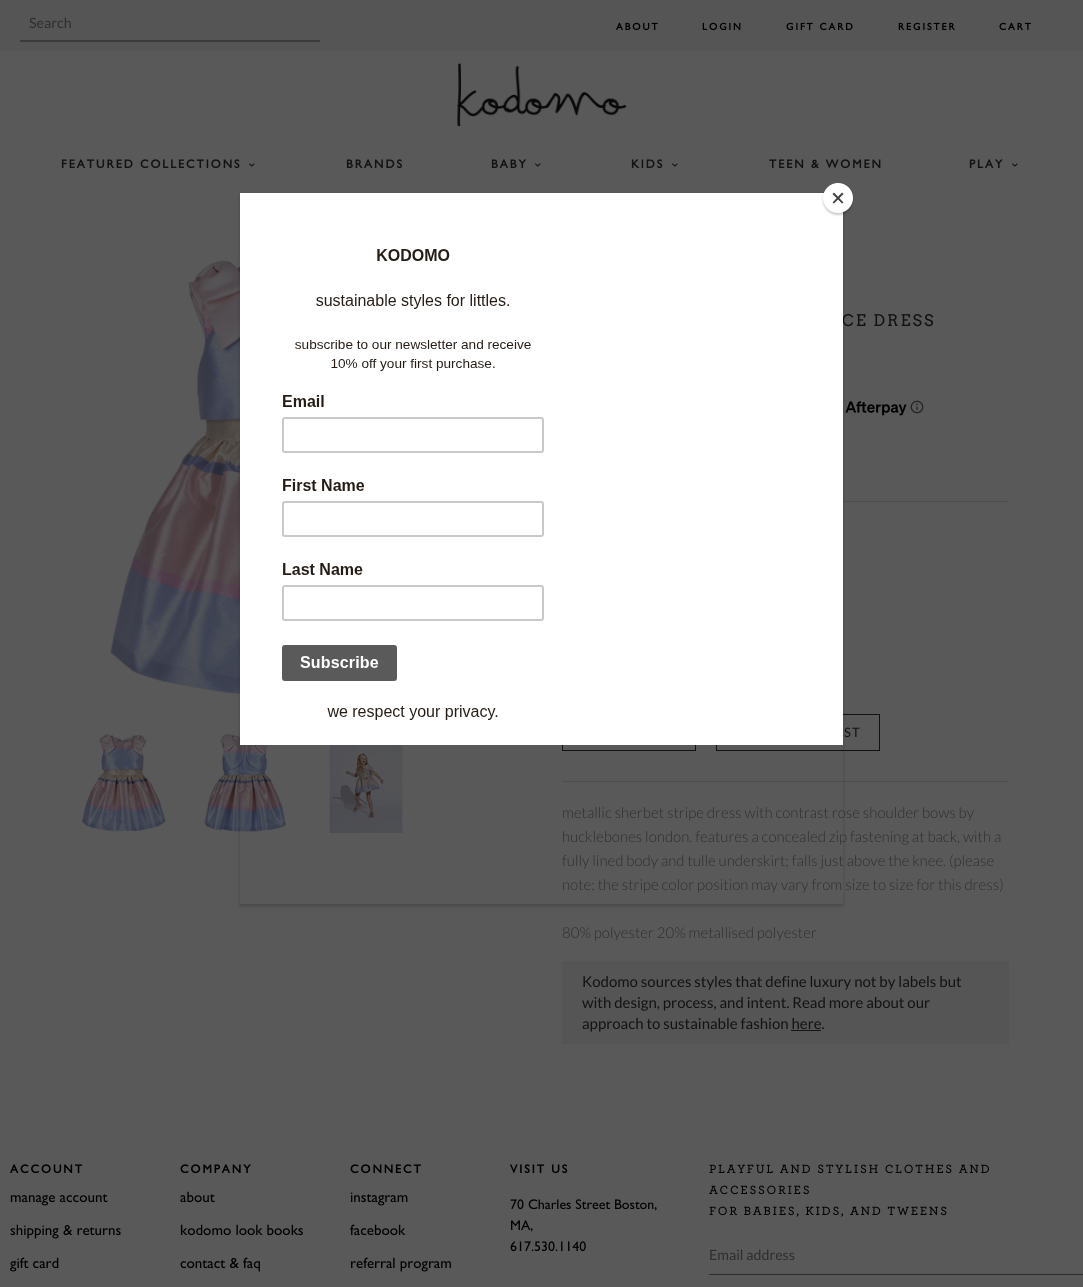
import math
import cairo



def draw_spaced(context, x, y, s, letter, word):
    context.move_to(x, y)
    for ch in s:
        context.show_text(ch)
        context.rel_move_to(letter + word * (ch == ' '), 0)


def rounded_rect(context, x, y, w, h, r):
    context.new_sub_path()
    for i, (u, v) in enumerate([(x + w - r, y + h - r), (x + r, y + h - r), (x + r, y + r), (x + w - r, y + r)]):
        context.arc(u, v, r, i * math.pi / 2, (i + 1) * math.pi / 2)
    context.close_path()


def draw_shadow(context, x, y, w, h, r, blur, alpha):
    context.push_group_with_content(cairo.Content.ALPHA)
    context.set_operator(cairo.Operator.SOURCE)
    for i in range(15, -16, -2):
        e = blur * i / 6
        if min(w, h) + 2 * e > 0:
            context.set_source_rgba(0, 0, 0, alpha * math.erfc((i - 1) / 8.5) / 2)
            rounded_rect(context, x - e, y - e, w + 2 * e, h + 2 * e, max(0, min(r + e + blur * .6, min(w, h) / 2 + e)))
            context.fill()
    context.mask(context.pop_group())


def draw_image(context, path, x, y, w, h):
    context.save()
    context.set_source_surface(cairo.ImageSurface.create_from_png(path), x, y)
    context.rectangle(x, y, w, h)
    context.fill()
    context.restore()


def draw(context):
    context.set_source_rgb(89 / 255, 89 / 255, 89 / 255)
    context.paint()
    context.set_source_rgb(85 / 255, 85 / 255, 85 / 255)
    context.rectangle(0, 0, 1083, 51)
    context.fill()
    context.set_source_rgb(59 / 255, 59 / 255, 59 / 255)
    context.rectangle(20, 40, 300, 2)
    context.fill()
    draw_image(context, "images/1.png", 457, 62, 170, 64)
    draw_image(context, "images/2.png", 249, 163, 6, 4)
    draw_image(context, "images/2.png", 535, 163, 6, 4)
    draw_image(context, "images/2.png", 672, 163, 6, 4)
    draw_image(context, "images/2.png", 1012, 163, 6, 4)
    draw_image(context, "images/3.png", 110, 260, 130, 437)
    draw_image(context, "images/4.png", 82, 733, 84, 100)
    draw_image(context, "images/5.png", 203, 733, 88, 100)
    draw_image(context, "images/6.png", 329, 745, 74, 88)
    context.set_source_rgb(77 / 255, 77 / 255, 77 / 255)
    context.rectangle(843, 501, 166, 1)
    context.fill()
    draw_image(context, "images/7.png", 845, 401, 62, 15)
    draw_image(context, "images/8.png", 910, 400, 14, 14)
    context.rectangle(562, 781, 447, 1)
    context.fill()
    context.rectangle(562.5, 714.5, 133, 36)
    context.set_source_rgb(18 / 255, 18 / 255, 18 / 255)
    context.set_line_width(1)
    context.stroke()
    context.rectangle(716.5, 714.5, 163, 36)
    context.stroke()
    context.set_source_rgb(85 / 255, 85 / 255, 85 / 255)
    context.rectangle(562, 961, 447, 83)
    context.fill()
    context.set_source_rgb(45 / 255, 45 / 255, 46 / 255)
    context.rectangle(709, 1274, 374, 1)
    context.fill()
    context.save()
    context.set_fill_rule(cairo.FillRule.EVEN_ODD)
    context.new_path()
    context.move_to(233, 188)
    context.line_to(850, 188)
    context.line_to(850, 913)
    context.line_to(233, 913)
    context.close_path()
    context.move_to(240, 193)
    context.line_to(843, 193)
    context.line_to(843, 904)
    context.line_to(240, 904)
    context.close_path()
    context.clip()
    context.set_source_rgb(0, 0, 0)
    draw_shadow(context, 240, 195, 603, 711, 0, 2, 0.2)
    context.restore()
    context.select_font_face("Lato")
    context.set_font_size(14.25)
    context.move_to(29, 28)
    context.show_text("Search")
    context.select_font_face("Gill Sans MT", cairo.FontSlant.NORMAL, cairo.FontWeight.BOLD)
    context.set_font_size(10)
    context.set_source_rgb(0, 0, 0)
    draw_spaced(context, 616, 30, "ABOUT", 2, 0)
    draw_spaced(context, 702, 30, "LOGIN", 2, 0)
    draw_spaced(context, 786, 30, "GIFT CARD", 2, 0)
    draw_spaced(context, 898, 30, "REGISTER", 2, 0)
    draw_spaced(context, 999, 30, "CART", 2, 0)
    context.set_font_size(12)
    context.set_source_rgb(18 / 255, 18 / 255, 18 / 255)
    draw_spaced(context, 61, 168, "FEATURED COLLECTIONS", 2, 0)
    draw_spaced(context, 346, 168, "BRANDS", 2, 0)
    draw_spaced(context, 491, 168, "BABY", 2, 0)
    draw_spaced(context, 631, 168, "KIDS", 2, 0)
    draw_spaced(context, 769, 168, "TEEN & WOMEN", 2, 0)
    draw_spaced(context, 969, 168, "PLAY", 2, 0)
    context.select_font_face("Arvo")
    context.set_font_size(16)
    draw_spaced(context, 842, 326, "CE DRESS", 2, 0)
    context.select_font_face("Lato")
    context.set_font_size(13)
    draw_spaced(context, 844, 737, "ST", 1, 0)
    context.select_font_face("Lato Light")
    context.set_font_size(15)
    context.set_source_rgb(45 / 255, 45 / 255, 46 / 255)
    context.move_to(562, 818)
    context.show_text("metallic sherbet stripe dress with contrast rose shoulder bows by")
    context.move_to(562, 842)
    context.show_text("hucklebones london. features a concealed zip fastening at back, with a")
    context.move_to(562, 866)
    context.show_text("fully lined body and tulle underskirt; falls just above the knee. (please")
    context.move_to(562, 890)
    context.show_text("note: the stripe color position may vary from size to size for this dress)")
    context.move_to(562, 938)
    context.show_text("80% polyester 20% metallised polyester")
    context.select_font_face("Lato")
    context.set_source_rgb(18 / 255, 18 / 255, 18 / 255)
    context.move_to(582, 987)
    context.show_text("Kodomo sources styles that define luxury not by labels but")
    context.move_to(582, 1008)
    context.show_text("with design, process, and intent. Read more about our")
    context.move_to(582, 1029)
    context.show_text("approach to sustainable fashion here.")
    context.set_source_rgb(22 / 255, 22 / 255, 23 / 255)
    context.rectangle(791, 1030, 30, 1)
    context.fill()
    context.select_font_face("Gill Sans MT", cairo.FontSlant.NORMAL, cairo.FontWeight.BOLD)
    context.set_font_size(12)
    context.set_source_rgb(0, 0, 0)
    draw_spaced(context, 10, 1173, "ACCOUNT", 2, 0)
    context.select_font_face("Gill Sans MT")
    context.set_font_size(15)
    context.move_to(10, 1202)
    context.show_text("manage account")
    context.move_to(10, 1235)
    context.show_text("shipping & returns")
    context.move_to(10, 1268)
    context.show_text("gift card")
    context.select_font_face("Gill Sans MT", cairo.FontSlant.NORMAL, cairo.FontWeight.BOLD)
    context.set_font_size(12)
    draw_spaced(context, 180, 1173, "COMPANY", 2, 0)
    context.select_font_face("Gill Sans MT")
    context.set_font_size(15)
    context.move_to(180, 1202)
    context.show_text("about")
    context.move_to(180, 1235)
    context.show_text("kodomo look books")
    context.move_to(180, 1268)
    context.show_text("contact & faq")
    context.select_font_face("Gill Sans MT", cairo.FontSlant.NORMAL, cairo.FontWeight.BOLD)
    context.set_font_size(12)
    draw_spaced(context, 350, 1173, "CONNECT", 2, 0)
    context.select_font_face("Gill Sans MT")
    context.set_font_size(15)
    context.move_to(350, 1202)
    context.show_text("instagram")
    context.move_to(350, 1235)
    context.show_text("facebook")
    context.move_to(350, 1268)
    context.show_text("referral program")
    context.select_font_face("Gill Sans MT", cairo.FontSlant.NORMAL, cairo.FontWeight.BOLD)
    context.set_font_size(12)
    draw_spaced(context, 510, 1173, "VISIT US", 2, 0)
    context.select_font_face("Gill Sans MT")
    context.set_font_size(14)
    context.move_to(510, 1209)
    context.show_text("70 Charles Street Boston,")
    context.move_to(510, 1230)
    context.show_text("MA,")
    context.move_to(510, 1251)
    context.show_text("617.530.1140")
    context.select_font_face("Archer", cairo.FontSlant.NORMAL, cairo.FontWeight.BOLD)
    context.set_font_size(12)
    draw_spaced(context, 709, 1173, "PLAYFUL AND STYLISH CLOTHES AND", 2, 0)
    draw_spaced(context, 709, 1194, "ACCESSORIES", 2, 0)
    draw_spaced(context, 709, 1215, "FOR BABIES, KIDS, AND TWEENS", 2, 0)
    context.select_font_face("Lato")
    context.set_font_size(14.25)
    context.set_source_rgb(45 / 255, 45 / 255, 46 / 255)
    context.move_to(709, 1260)
    context.show_text("Email address")
    draw_image(context, "images/9.png", 240, 193, 603, 552)
    context.set_source_rgb(0, 0, 0)
    draw_shadow(context, 823, 185, 30, 30, 15, 1, 0.2)
    context.set_source_rgb(1, 1, 1)
    context.arc(838, 198, 15, 0, 2 * math.pi)
    context.fill()
    context.set_source_rgb(65 / 255, 65 / 255, 65 / 255)
    context.new_path()
    context.move_to(842, 192.5)
    context.line_to(843.5, 194)
    context.line_to(834, 203.5)
    context.line_to(832.5, 202.5)
    context.close_path()
    context.fill()
    context.new_path()
    context.move_to(832.5, 194)
    context.line_to(834, 192.5)
    context.line_to(843.5, 202.5)
    context.line_to(842, 203.5)
    context.close_path()
    context.fill()


surface = cairo.ImageSurface(cairo.Format.RGB24, 1083, 1287)
context = cairo.Context(surface)
options = cairo.FontOptions()
options.set_hint_metrics(cairo.HintMetrics.OFF)
options.set_hint_style(cairo.HintStyle.NONE)
context.set_font_options(options)
context.set_miter_limit(4)
draw(context)
surface.write_to_png("out.png")
